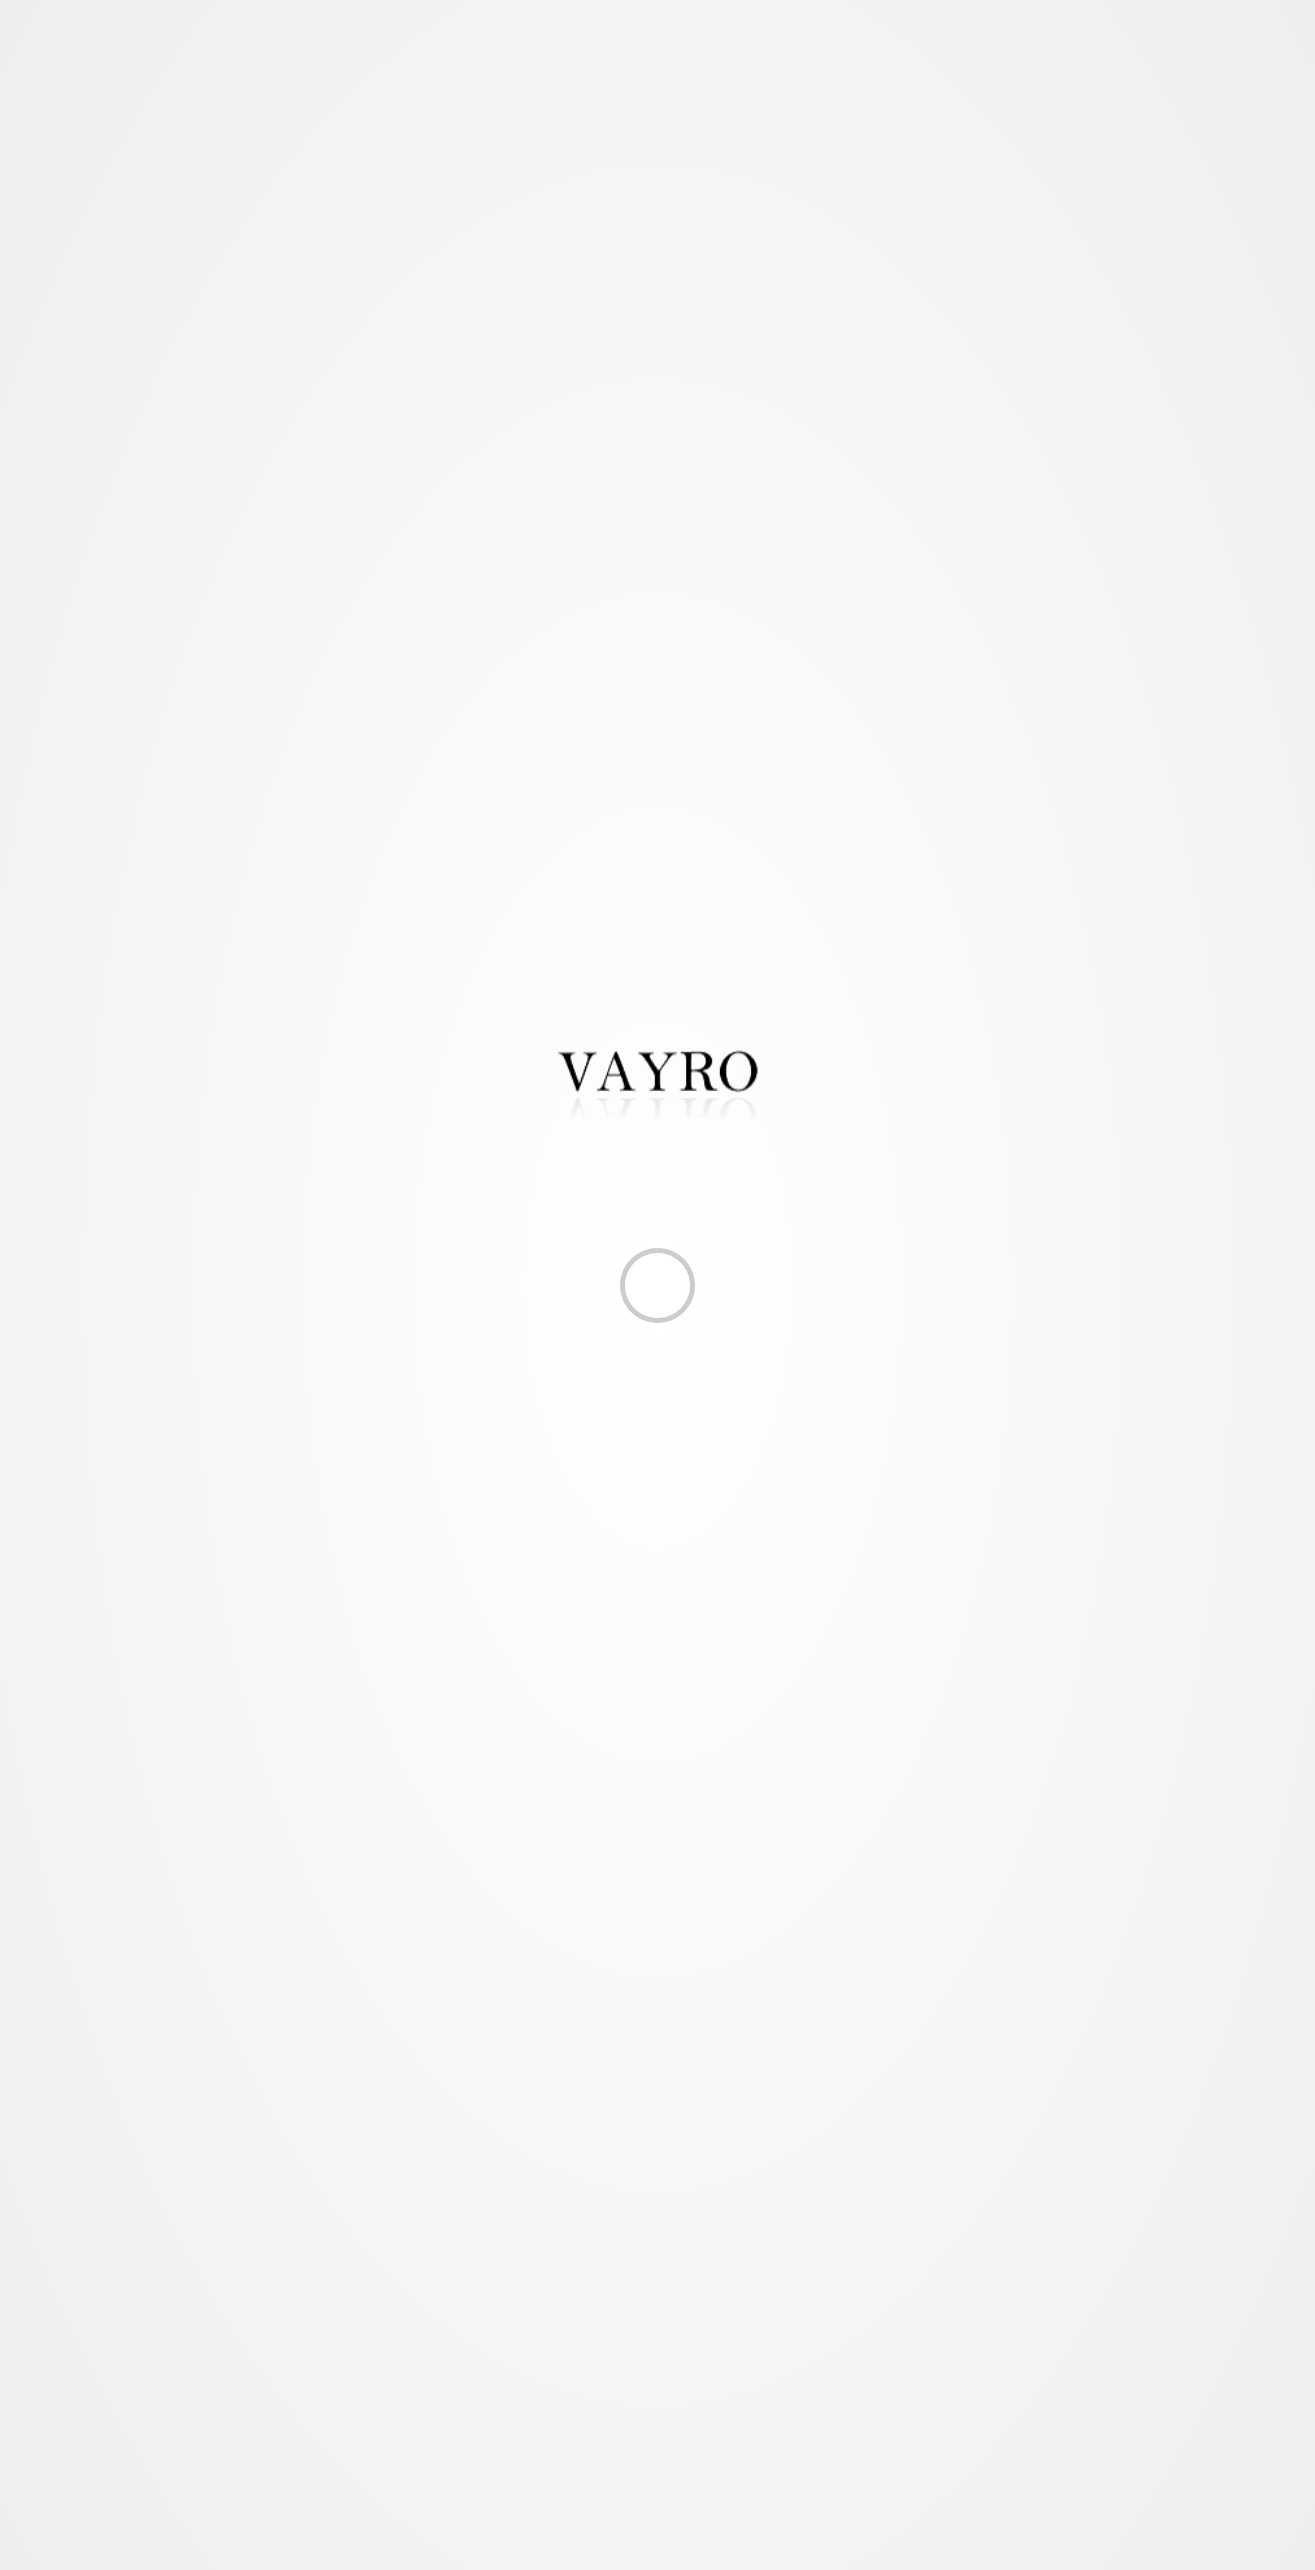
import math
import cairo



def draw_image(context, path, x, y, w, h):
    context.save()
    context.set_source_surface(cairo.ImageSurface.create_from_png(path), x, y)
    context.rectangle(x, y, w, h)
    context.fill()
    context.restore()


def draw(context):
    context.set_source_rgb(1, 1, 1)
    context.paint()
    gradient = cairo.RadialGradient(0, 0, 0, 0, 0, 1)
    gradient.set_matrix(cairo.Matrix(1 / 930, 0, 0, 1 / 1817, -1 * 658 / 930, -1 * 1285 / 1817))
    gradient.add_color_stop_rgba(0, 1, 1, 1, 1)
    gradient.add_color_stop_rgba(1, 238 / 255, 238 / 255, 238 / 255, 1)
    context.set_source(gradient)
    context.rectangle(0, 0, 1315, 2570)
    context.fill()
    draw_image(context, "images/1.png", 557, 1050, 201, 43)
    draw_image(context, "images/2.png", 570, 1097, 187, 21)
    context.arc(657.5, 1285.5, 35, 0, 2 * math.pi)
    context.set_source_rgb(204 / 255, 204 / 255, 204 / 255)
    context.set_line_width(5)
    context.stroke()


surface = cairo.ImageSurface(cairo.Format.RGB24, 1315, 2570)
context = cairo.Context(surface)
options = cairo.FontOptions()
options.set_hint_metrics(cairo.HintMetrics.OFF)
options.set_hint_style(cairo.HintStyle.NONE)
context.set_font_options(options)
context.set_miter_limit(4)
draw(context)
surface.write_to_png("out.png")
